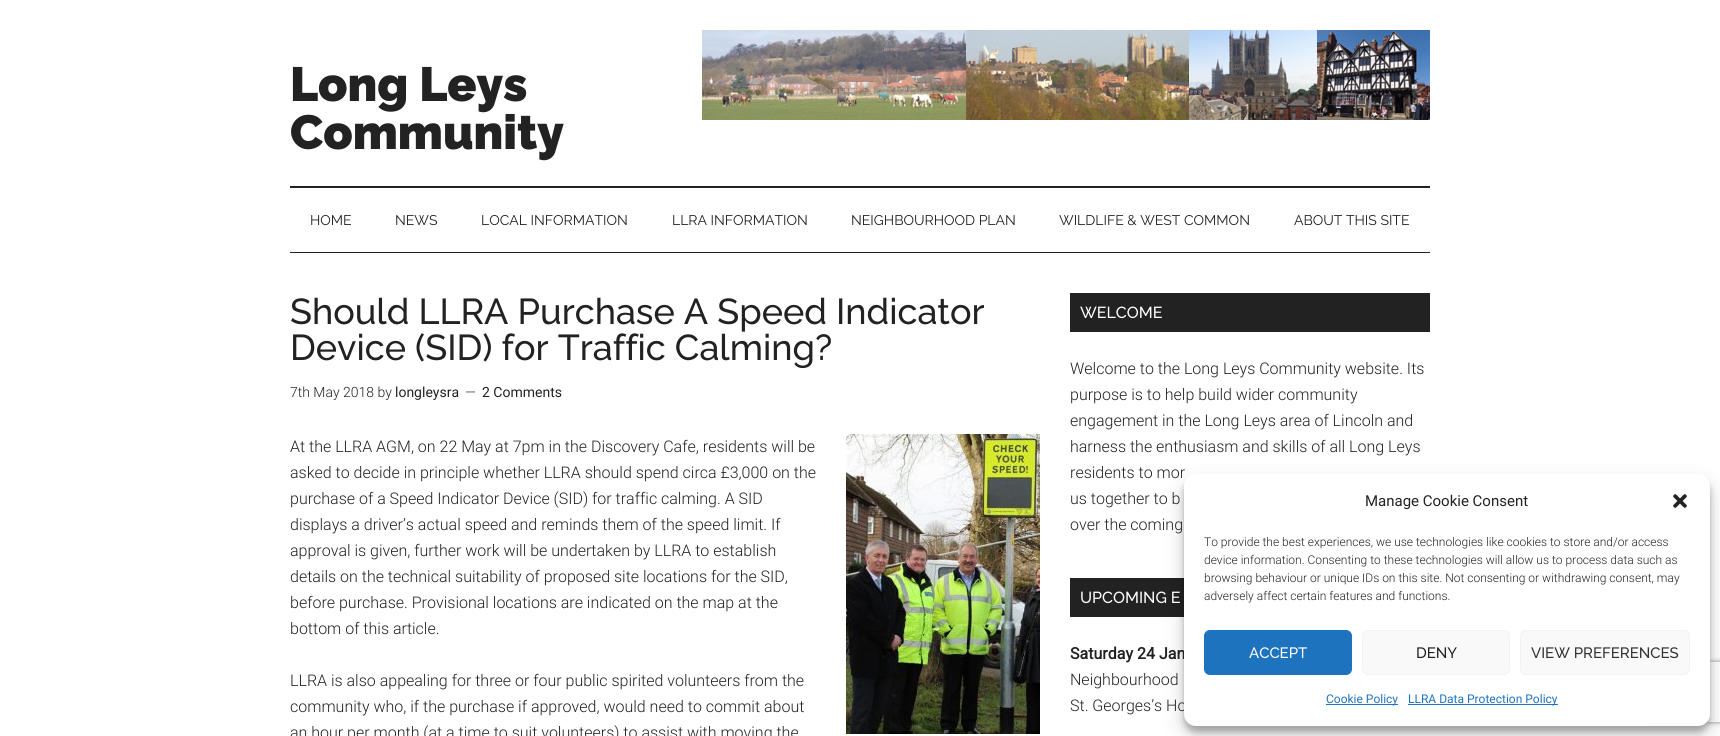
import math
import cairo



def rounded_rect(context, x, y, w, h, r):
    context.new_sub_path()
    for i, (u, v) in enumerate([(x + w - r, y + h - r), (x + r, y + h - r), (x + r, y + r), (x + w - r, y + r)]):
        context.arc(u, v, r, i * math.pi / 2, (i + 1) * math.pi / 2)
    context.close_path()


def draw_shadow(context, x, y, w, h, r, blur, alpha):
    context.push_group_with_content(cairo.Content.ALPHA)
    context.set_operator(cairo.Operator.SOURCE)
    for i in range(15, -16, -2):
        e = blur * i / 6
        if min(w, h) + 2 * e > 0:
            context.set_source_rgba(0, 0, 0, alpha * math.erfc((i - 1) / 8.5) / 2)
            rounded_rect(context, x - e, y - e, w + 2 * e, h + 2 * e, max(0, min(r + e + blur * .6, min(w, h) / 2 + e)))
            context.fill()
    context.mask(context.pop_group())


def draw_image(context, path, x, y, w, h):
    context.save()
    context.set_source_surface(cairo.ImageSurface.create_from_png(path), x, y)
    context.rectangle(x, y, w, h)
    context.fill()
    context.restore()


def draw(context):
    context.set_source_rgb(1, 1, 1)
    context.paint()
    context.set_source_rgb(34 / 255, 34 / 255, 34 / 255)
    context.rectangle(290, 186, 1140, 2)
    context.fill()
    draw_image(context, "images/1.png", 702, 30, 728, 90)
    context.rectangle(290, 252, 1140, 1)
    context.fill()
    draw_image(context, "images/2.png", 846, 434, 194, 300)
    context.rectangle(1070, 293, 360, 39)
    context.fill()
    context.rectangle(1070, 578, 114, 39)
    context.fill()
    context.set_source_rgb(0, 0, 0)
    draw_shadow(context, 1184, 480, 526, 252, 12, 3, 0.23)
    draw_shadow(context, 1184, 484, 526, 252, 12, 10, 0.19)
    context.save()
    context.set_fill_rule(cairo.FillRule.EVEN_ODD)
    context.new_path()
    context.move_to(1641, 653)
    context.line_to(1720, 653)
    context.line_to(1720, 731)
    context.line_to(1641, 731)
    context.close_path()
    context.move_to(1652, 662)
    context.line_to(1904, 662)
    context.curve_to(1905, 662, 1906, 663, 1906, 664)
    context.line_to(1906, 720)
    context.curve_to(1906, 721, 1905, 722, 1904, 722)
    context.line_to(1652, 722)
    context.curve_to(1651, 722, 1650, 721, 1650, 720)
    context.line_to(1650, 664)
    context.curve_to(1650, 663, 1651, 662, 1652, 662)
    context.close_path()
    context.clip()
    context.set_source_rgb(128 / 255, 128 / 255, 128 / 255)
    draw_shadow(context, 1650, 662, 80, 60, 2, 2.5, 1)
    context.restore()
    context.select_font_face("Raleway Black")
    context.set_font_size(48)
    context.set_source_rgb(34 / 255, 34 / 255, 34 / 255)
    context.move_to(290, 101)
    context.show_text("Long Leys")
    context.move_to(290, 149)
    context.show_text("Community")
    context.select_font_face("Raleway")
    context.set_font_size(14)
    context.move_to(310, 225)
    context.show_text("HOME")
    context.move_to(395, 225)
    context.show_text("NEWS")
    context.move_to(481, 225)
    context.show_text("LOCAL INFORMATION")
    context.move_to(672, 225)
    context.show_text("LLRA INFORMATION")
    context.move_to(851, 225)
    context.show_text("NEIGHBOURHOOD PLAN")
    context.move_to(1059, 225)
    context.show_text("WILDLIFE & WEST COMMON")
    context.move_to(1294, 225)
    context.show_text("ABOUT THIS SITE")
    context.select_font_face("Raleway Medium")
    context.set_font_size(36)
    context.move_to(290, 324)
    context.show_text("Should LLRA Purchase A Speed Indicator")
    context.move_to(290, 360)
    context.show_text("Device (SID) for Traffic Calming?")
    context.select_font_face("Roboto Light")
    context.set_font_size(14)
    context.move_to(290, 397)
    context.show_text("7th May 2018 by")
    context.select_font_face("Roboto")
    context.move_to(395, 397)
    context.show_text("longleysra")
    context.select_font_face("Roboto Light")
    context.move_to(465, 397)
    context.show_text("—")
    context.select_font_face("Roboto")
    context.move_to(482, 397)
    context.show_text("2 Comments")
    context.select_font_face("Roboto Light")
    context.set_font_size(16)
    context.move_to(290, 452)
    context.show_text("At the LLRA AGM, on 22 May at 7pm in the Discovery Cafe, residents will be")
    context.move_to(290, 478)
    context.show_text("asked to decide in principle whether LLRA should spend circa £3,000 on the")
    context.move_to(290, 504)
    context.show_text("purchase of a Speed Indicator Device (SID) for traffic calming. A SID")
    context.move_to(290, 530)
    context.show_text("displays a driver’s actual speed and reminds them of the speed limit. If")
    context.move_to(290, 556)
    context.show_text("approval is given, further work will be undertaken by LLRA to establish")
    context.move_to(290, 582)
    context.show_text("details on the technical suitability of proposed site locations for the SID,")
    context.move_to(290, 608)
    context.show_text("before purchase. Provisional locations are indicated on the map at the")
    context.move_to(290, 634)
    context.show_text("bottom of this article.")
    context.move_to(290, 686)
    context.show_text("LLRA is also appealing for three or four public spirited volunteers from the")
    context.move_to(290, 712)
    context.show_text("community who, if the purchase if approved, would need to commit about")
    context.move_to(290, 738)
    context.show_text("an hour per month (at a time to suit volunteers) to assist with moving the")
    context.select_font_face("Raleway Medium")
    context.set_source_rgb(1, 1, 1)
    context.move_to(1080, 318)
    context.show_text("WELCOME")
    context.select_font_face("Roboto Light")
    context.set_source_rgb(34 / 255, 34 / 255, 34 / 255)
    context.move_to(1070, 374)
    context.show_text("Welcome to the Long Leys Community website. Its")
    context.move_to(1070, 400)
    context.show_text("purpose is to help build wider community")
    context.move_to(1070, 426)
    context.show_text("engagement in the Long Leys area of Lincoln and")
    context.move_to(1070, 452)
    context.show_text("harness the enthusiasm and skills of all Long Leys")
    context.move_to(1070, 478)
    context.show_text("residents to mor")
    context.move_to(1070, 504)
    context.show_text("us together to b")
    context.move_to(1070, 530)
    context.show_text("over the coming")
    context.select_font_face("Raleway Medium")
    context.set_source_rgb(1, 1, 1)
    context.move_to(1080, 603)
    context.show_text("UPCOMING E")
    context.select_font_face("Roboto", cairo.FontSlant.NORMAL, cairo.FontWeight.BOLD)
    context.set_source_rgb(34 / 255, 34 / 255, 34 / 255)
    context.move_to(1070, 659)
    context.show_text("Saturday 24 Jan")
    context.select_font_face("Roboto Light")
    context.move_to(1070, 685)
    context.show_text("Neighbourhood")
    context.move_to(1070, 711)
    context.show_text("St. Georges’s Ho")
    context.set_source_rgb(1, 1, 1)
    rounded_rect(context, 1184, 474, 526, 252, 12)
    context.fill()
    context.select_font_face("Roboto")
    context.set_font_size(15)
    context.set_source_rgb(34 / 255, 34 / 255, 34 / 255)
    context.move_to(1365, 506)
    context.show_text("Manage Cookie Consent")
    draw_image(context, "images/3.png", 1673, 494, 14, 14)
    context.select_font_face("Roboto Light")
    context.set_font_size(12)
    context.move_to(1204, 546)
    context.show_text("To provide the best experiences, we use technologies like cookies to store and/or access")
    context.move_to(1204, 564)
    context.show_text("device information. Consenting to these technologies will allow us to process data such as")
    context.move_to(1204, 582)
    context.show_text("browsing behaviour or unique IDs on this site. Not consenting or withdrawing consent, may")
    context.move_to(1204, 600)
    context.show_text("adversely affect certain features and functions.")
    context.set_source_rgb(30 / 255, 115 / 255, 190 / 255)
    rounded_rect(context, 1204.5, 630.5, 147, 44, 5.5)
    context.fill_preserve()
    context.set_line_width(1)
    context.stroke()
    context.select_font_face("Raleway Medium")
    context.set_font_size(15)
    context.set_source_rgb(1, 1, 1)
    context.move_to(1249, 658)
    context.show_text("ACCEPT")
    context.set_source_rgb(249 / 255, 249 / 255, 249 / 255)
    rounded_rect(context, 1362.5, 630.5, 147, 44, 5.5)
    context.fill_preserve()
    context.set_source_rgb(242 / 255, 242 / 255, 242 / 255)
    context.stroke()
    context.set_source_rgb(34 / 255, 34 / 255, 34 / 255)
    context.move_to(1416, 658)
    context.show_text("DENY")
    context.set_source_rgb(249 / 255, 249 / 255, 249 / 255)
    rounded_rect(context, 1520.5, 630.5, 169, 44, 5.5)
    context.fill_preserve()
    context.set_source_rgb(242 / 255, 242 / 255, 242 / 255)
    context.stroke()
    context.set_source_rgb(51 / 255, 51 / 255, 51 / 255)
    context.move_to(1531, 658)
    context.show_text("VIEW PREFERENCES")
    context.set_source_rgb(30 / 255, 115 / 255, 190 / 255)
    context.rectangle(1326, 704, 72, 1)
    context.fill()
    context.select_font_face("Roboto")
    context.set_font_size(12)
    context.move_to(1326, 703)
    context.show_text("Cookie Policy")
    context.rectangle(1408, 704, 150, 1)
    context.fill()
    context.move_to(1408, 703)
    context.show_text("LLRA Data Protection Policy")


surface = cairo.ImageSurface(cairo.Format.RGB24, 1720, 736)
context = cairo.Context(surface)
options = cairo.FontOptions()
options.set_hint_metrics(cairo.HintMetrics.OFF)
options.set_hint_style(cairo.HintStyle.NONE)
context.set_font_options(options)
context.set_miter_limit(4)
draw(context)
surface.write_to_png("out.png")
